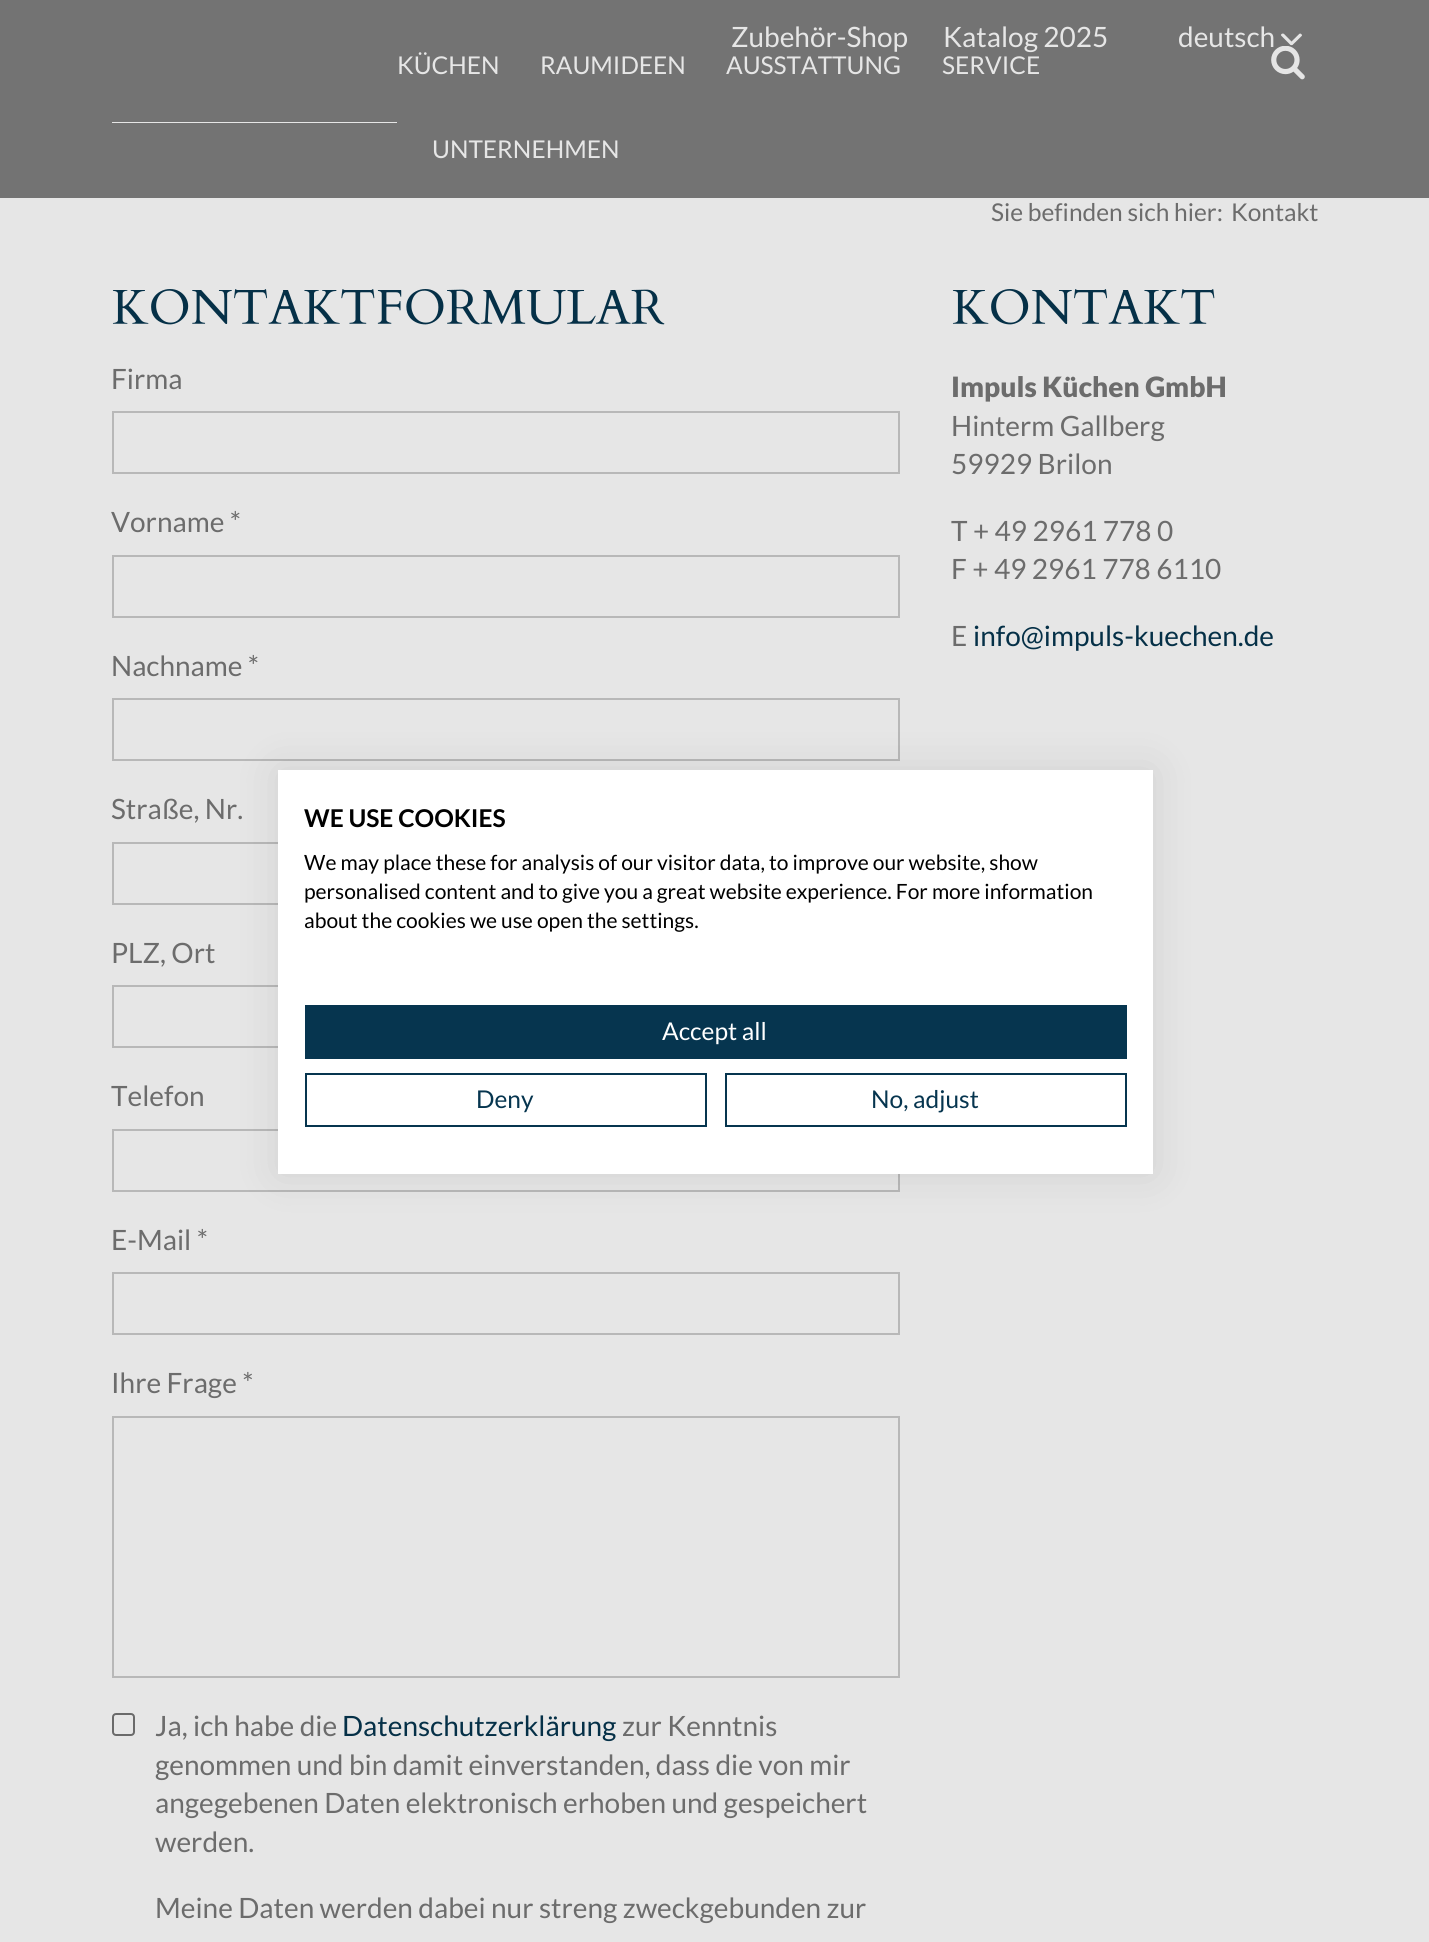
import math
import cairo



def rounded_rect(context, x, y, w, h, r):
    context.new_sub_path()
    for i, (u, v) in enumerate([(x + w - r, y + h - r), (x + r, y + h - r), (x + r, y + r), (x + w - r, y + r)]):
        context.arc(u, v, r, i * math.pi / 2, (i + 1) * math.pi / 2)
    context.close_path()


def draw_shadow(context, x, y, w, h, r, blur, alpha):
    context.push_group_with_content(cairo.Content.ALPHA)
    context.set_operator(cairo.Operator.SOURCE)
    for i in range(15, -16, -2):
        e = blur * i / 6
        if min(w, h) + 2 * e > 0:
            context.set_source_rgba(0, 0, 0, alpha * math.erfc((i - 1) / 8.5) / 2)
            rounded_rect(context, x - e, y - e, w + 2 * e, h + 2 * e, max(0, min(r + e + blur * .6, min(w, h) / 2 + e)))
            context.fill()
    context.mask(context.pop_group())


def draw_image(context, path, x, y, w, h):
    context.save()
    context.set_source_surface(cairo.ImageSurface.create_from_png(path), x, y)
    context.rectangle(x, y, w, h)
    context.fill()
    context.restore()


def draw(context):
    context.set_source_rgb(230 / 255, 230 / 255, 230 / 255)
    context.paint()
    context.set_source_rgb(115 / 255, 115 / 255, 115 / 255)
    context.rectangle(0, 0, 1429, 198)
    context.fill()
    draw_image(context, "images/1.png", 1281, 33, 21, 13)
    context.set_source_rgb(230 / 255, 230 / 255, 230 / 255)
    context.rectangle(112, 122, 285, 1)
    context.fill()
    draw_image(context, "images/2.png", 1271, 46, 34, 34)
    draw_image(context, "images/3.png", 112, 289, 553, 36)
    context.rectangle(113, 412, 786, 61)
    context.set_source_rgb(184 / 255, 184 / 255, 184 / 255)
    context.stroke()
    context.rectangle(113, 556, 786, 61)
    context.stroke()
    context.rectangle(113, 699, 786, 61)
    context.stroke()
    context.rectangle(113, 843, 786, 61)
    context.stroke()
    context.rectangle(113, 986, 786, 61)
    context.stroke()
    context.rectangle(113, 1130, 786, 61)
    context.stroke()
    context.rectangle(113, 1273, 786, 61)
    context.stroke()
    context.rectangle(113, 1417, 786, 260)
    context.stroke()
    rounded_rect(context, 113, 1714, 21, 21, 3)
    context.set_source_rgb(106 / 255, 106 / 255, 106 / 255)
    context.stroke()
    draw_image(context, "images/4.png", 952, 289, 263, 36)
    context.set_source_rgb(0, 0, 0)
    draw_shadow(context, 278, 770, 875, 404, 0, 21, 0.1)
    context.set_source_rgb(1, 1, 1)
    context.rectangle(278, 770, 875, 404)
    context.fill()
    context.set_source_rgb(6 / 255, 53 / 255, 79 / 255)
    context.rectangle(305, 1005, 822, 54)
    context.fill()
    context.rectangle(306, 1074, 400, 52)
    context.stroke()
    context.rectangle(726, 1074, 400, 52)
    context.stroke()
    context.select_font_face("Lato")
    context.set_font_size(28)
    context.set_source_rgb(230 / 255, 230 / 255, 230 / 255)
    context.move_to(731, 47)
    context.show_text("Zubehör-Shop")
    context.move_to(943, 47)
    context.show_text("Katalog 2025")
    context.move_to(1178, 47)
    context.show_text("deutsch")
    context.set_font_size(24.5)
    context.move_to(397, 74)
    context.show_text("KÜCHEN")
    context.move_to(540, 74)
    context.show_text("RAUMIDEEN")
    context.move_to(726, 74)
    context.show_text("AUSSTATTUNG")
    context.move_to(942, 74)
    context.show_text("SERVICE")
    context.move_to(432, 158)
    context.show_text("UNTERNEHMEN")
    context.set_source_rgb(108 / 255, 108 / 255, 108 / 255)
    context.move_to(991, 221)
    context.show_text("Sie befinden sich hier:")
    context.move_to(1231, 221)
    context.show_text("Kontakt")
    context.set_font_size(28)
    context.move_to(111, 389)
    context.show_text("Firma")
    context.move_to(111, 532)
    context.show_text("Vorname *")
    context.move_to(111, 676)
    context.show_text("Nachname *")
    context.move_to(111, 819)
    context.show_text("Straße, Nr.")
    context.move_to(111, 963)
    context.show_text("PLZ, Ort")
    context.move_to(111, 1106)
    context.show_text("Telefon")
    context.move_to(111, 1250)
    context.show_text("E-Mail *")
    context.move_to(111, 1393)
    context.show_text("Ihre Frage *")
    context.move_to(155, 1736)
    context.show_text("Ja, ich habe die")
    context.set_source_rgb(5 / 255, 48 / 255, 71 / 255)
    context.move_to(342, 1736)
    context.show_text("Datenschutzerklärung")
    context.set_source_rgb(108 / 255, 108 / 255, 108 / 255)
    context.move_to(622, 1736)
    context.show_text("zur Kenntnis")
    context.move_to(155, 1775)
    context.show_text("genommen und bin damit einverstanden, dass die von mir")
    context.move_to(155, 1813)
    context.show_text("angegebenen Daten elektronisch erhoben und gespeichert")
    context.move_to(155, 1852)
    context.show_text("werden.")
    context.move_to(155, 1918)
    context.show_text("Meine Daten werden dabei nur streng zweckgebunden zur")
    context.select_font_face("Lato Black")
    context.move_to(951, 397)
    context.show_text("Impuls Küchen GmbH")
    context.select_font_face("Lato")
    context.move_to(951, 436)
    context.show_text("Hinterm Gallberg")
    context.move_to(951, 474)
    context.show_text("59929 Brilon")
    context.move_to(951, 541)
    context.show_text("T + 49 2961 778 0")
    context.move_to(951, 579)
    context.show_text("F + 49 2961 778 6110")
    context.move_to(951, 646)
    context.show_text("E")
    context.set_source_rgb(5 / 255, 48 / 255, 71 / 255)
    context.move_to(973, 646)
    context.show_text("info@impuls-kuechen.de")
    context.select_font_face("Lato", cairo.FontSlant.NORMAL, cairo.FontWeight.BOLD)
    context.set_font_size(24.5)
    context.set_source_rgb(0, 0, 0)
    context.move_to(304, 827)
    context.show_text("WE USE COOKIES")
    context.select_font_face("Lato")
    context.set_font_size(21)
    context.move_to(304, 870)
    context.show_text("We may place these for analysis of our visitor data, to improve our website, show")
    context.move_to(304, 899)
    context.show_text("personalised content and to give you a great website experience. For more information")
    context.move_to(304, 928)
    context.show_text("about the cookies we use open the settings.")
    context.set_font_size(24.5)
    context.set_source_rgb(1, 1, 1)
    context.move_to(662, 1040)
    context.show_text("Accept all")
    context.set_source_rgb(6 / 255, 53 / 255, 79 / 255)
    context.move_to(476, 1108)
    context.show_text("Deny")
    context.move_to(871, 1108)
    context.show_text("No, adjust")


surface = cairo.ImageSurface(cairo.Format.RGB24, 1429, 1942)
context = cairo.Context(surface)
options = cairo.FontOptions()
options.set_hint_metrics(cairo.HintMetrics.OFF)
options.set_hint_style(cairo.HintStyle.NONE)
context.set_font_options(options)
context.set_miter_limit(4)
draw(context)
surface.write_to_png("out.png")
